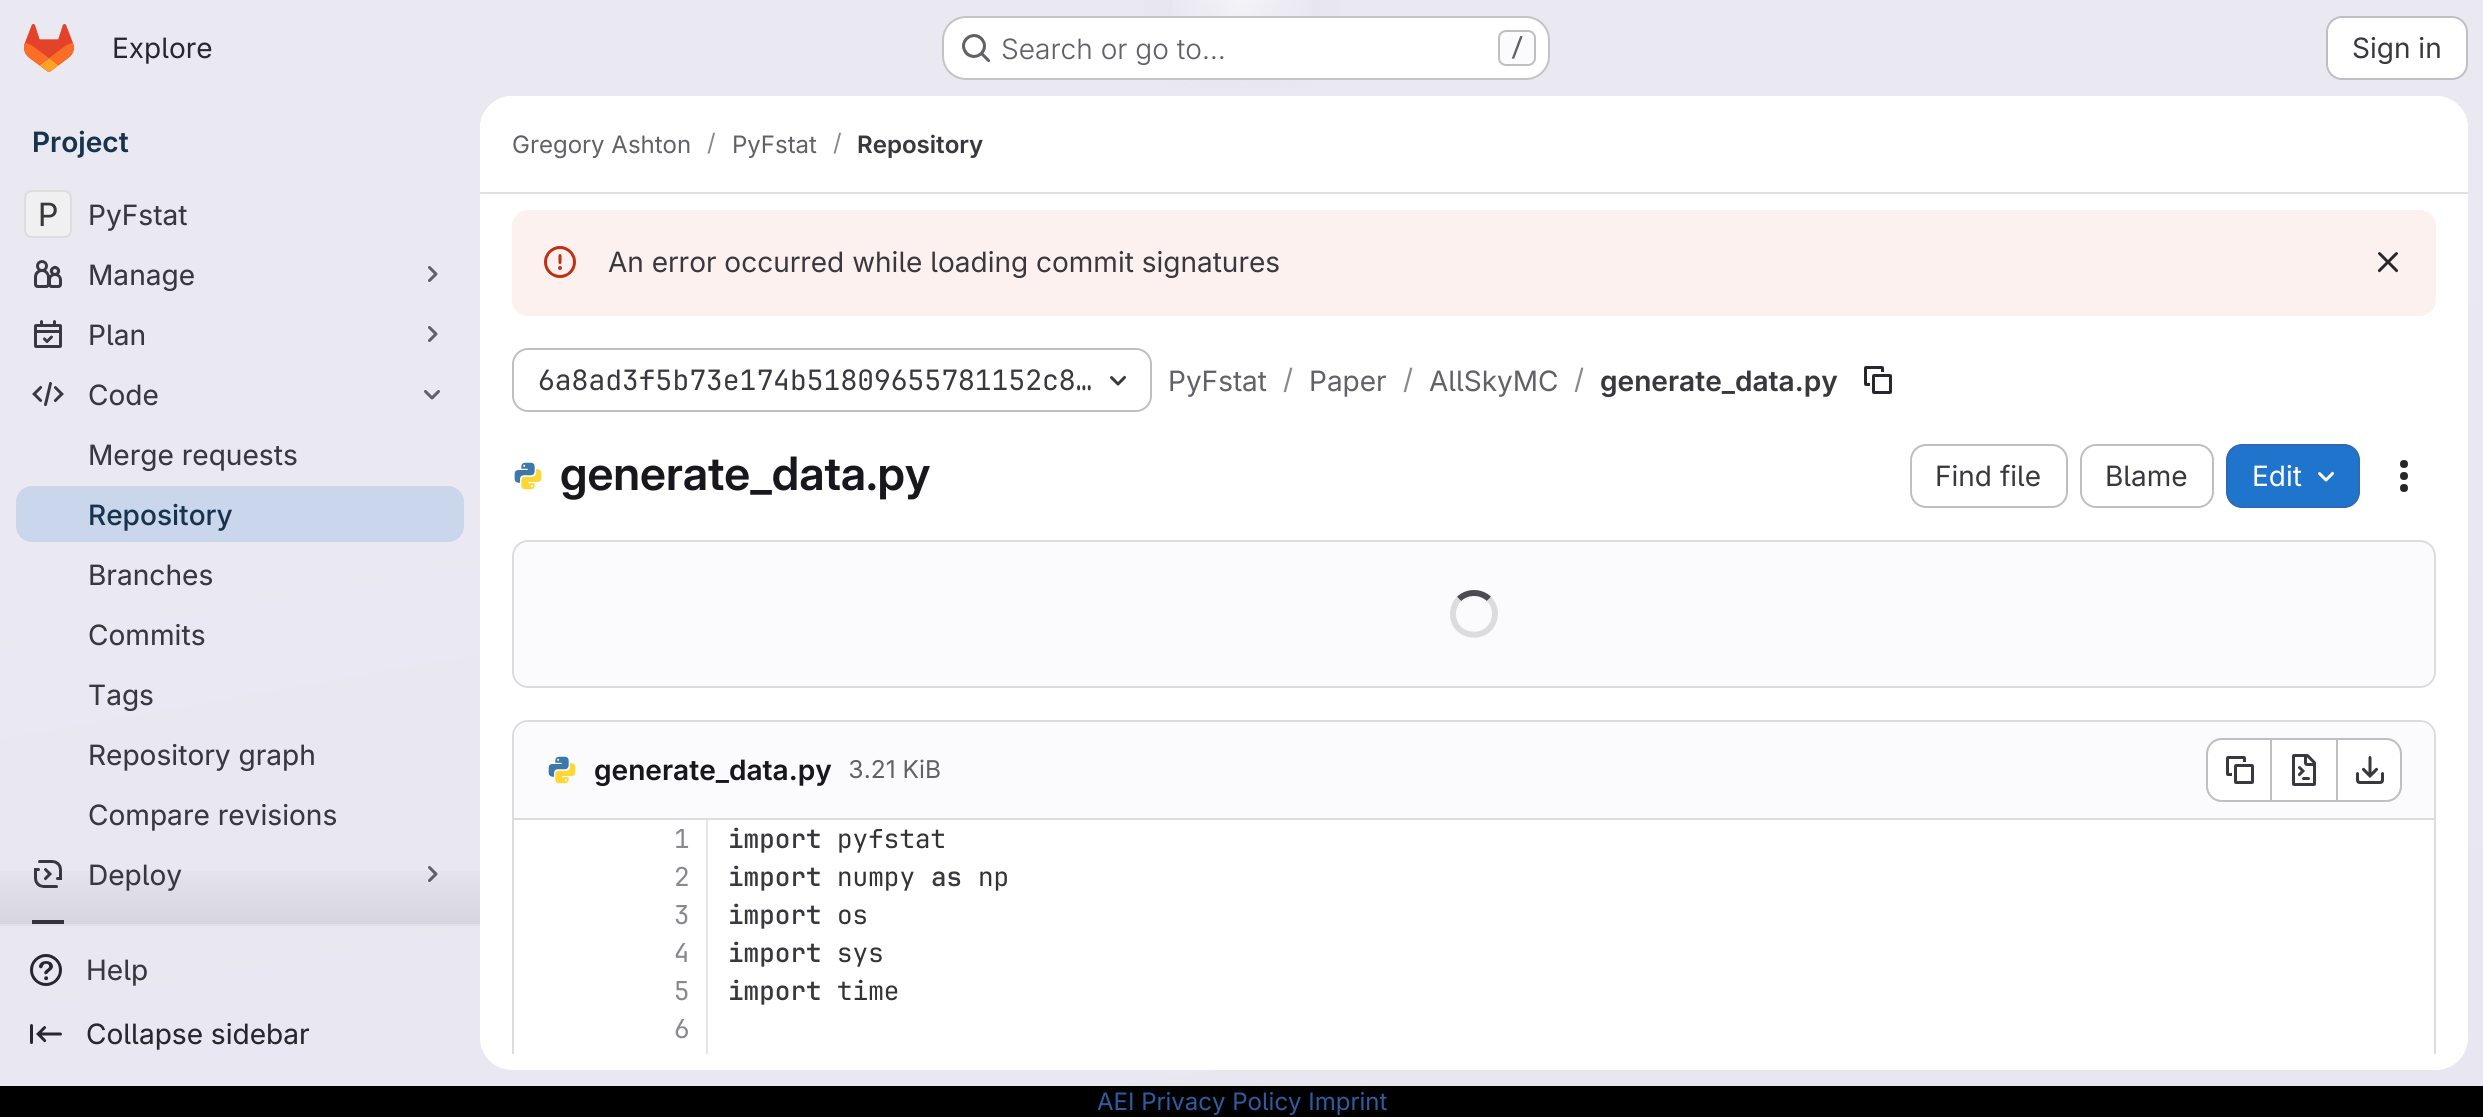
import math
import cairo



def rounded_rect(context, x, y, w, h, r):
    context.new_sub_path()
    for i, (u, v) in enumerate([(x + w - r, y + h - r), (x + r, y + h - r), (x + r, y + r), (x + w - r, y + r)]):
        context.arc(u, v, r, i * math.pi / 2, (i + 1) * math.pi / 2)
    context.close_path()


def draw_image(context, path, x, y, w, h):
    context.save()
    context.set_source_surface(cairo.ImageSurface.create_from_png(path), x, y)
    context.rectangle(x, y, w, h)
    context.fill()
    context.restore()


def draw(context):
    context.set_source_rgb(1, 1, 1)
    context.paint()
    gradient = cairo.LinearGradient(1375, 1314, 1109, -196)
    gradient.add_color_stop_rgba(0, 232 / 255, 230 / 255, 240 / 255, 1)
    gradient.add_color_stop_rgba(0.7, 234 / 255, 233 / 255, 242 / 255, 1)
    context.set_source(gradient)
    context.rectangle(0, 0, 2483, 1086)
    context.fill()
    gradient = cairo.RadialGradient(0, 0, 0, 0, 0, 1)
    gradient.set_matrix(cairo.Matrix(1 / 1242, 0, 0, 1 / 1118, -1 * 1242 / 1242, -1 * 0 / 1118))
    gradient.add_color_stop_rgba(0, 228 / 255, 226 / 255, 237 / 255, 1)
    gradient.add_color_stop_rgba(0.11, 228 / 255, 226 / 255, 237 / 255, 0)
    context.set_source(gradient)
    context.rectangle(1144, 0, 196, 88)
    context.fill()
    gradient = cairo.RadialGradient(0, 0, 0, 0, 0, 1)
    gradient.set_matrix(cairo.Matrix(1 / 1242, 0, 0, 1 / 1118, -1 * 1242 / 1242, -1 * 0 / 1118))
    gradient.add_color_stop_rgba(0, 228 / 255, 226 / 255, 236 / 255, 1)
    gradient.add_color_stop_rgba(0.08, 228 / 255, 226 / 255, 236 / 255, 0)
    context.set_source(gradient)
    context.rectangle(1201, 3, 82, 31)
    context.fill()
    gradient = cairo.RadialGradient(1242, 0, 0, 1242, 0, 1671)
    gradient.add_color_stop_rgba(0, 1, 1, 1, 0.6)
    gradient.add_color_stop_rgba(0.05, 1, 1, 1, 0)
    context.set_source(gradient)
    context.rectangle(1172, 0, 140, 16)
    context.fill()
    draw_image(context, "images/1.png", 24, 24, 50, 48)
    context.set_source_rgb(1, 1, 1)
    rounded_rect(context, 942, 16, 608, 64, 24)
    context.fill()
    rounded_rect(context, 943, 17, 606, 62, 23)
    context.set_source_rgba(5 / 255, 5 / 255, 6 / 255, 0.24)
    context.stroke()
    draw_image(context, "images/2.png", 962, 34, 29, 29)
    context.set_source_rgb(251 / 255, 250 / 255, 253 / 255)
    rounded_rect(context, 1499, 31, 36, 34, 7)
    context.fill_preserve()
    context.set_source_rgb(191 / 255, 191 / 255, 195 / 255)
    context.stroke()
    context.set_source_rgb(1, 1, 1)
    rounded_rect(context, 2327, 17, 140, 62, 15)
    context.fill_preserve()
    context.set_source_rgb(191 / 255, 191 / 255, 195 / 255)
    context.stroke()
    context.set_source_rgb(225 / 255, 223 / 255, 236 / 255)
    context.rectangle(0, 924, 480, 2)
    context.fill()
    context.set_source_rgb(1, 1, 1)
    rounded_rect(context, 24, 190, 48, 48, 8)
    context.fill()
    context.set_source_rgba(191 / 255, 191 / 255, 195 / 255, 0.24)
    rounded_rect(context, 24, 190, 48, 48, 8)
    context.fill()
    rounded_rect(context, 25, 191, 46, 46, 7)
    context.set_source_rgb(221 / 255, 221 / 255, 222 / 255)
    context.stroke()
    draw_image(context, "images/3.png", 34, 260, 28, 28)
    context.new_path()
    context.move_to(429.5, 267.5)
    context.line_to(436, 274)
    context.line_to(429.5, 280.5)
    context.set_source_rgb(98 / 255, 97 / 255, 104 / 255)
    context.set_line_width(3)
    context.set_line_cap(cairo.LineCap.ROUND)
    context.set_line_join(cairo.LineJoin.ROUND)
    context.stroke()
    draw_image(context, "images/4.png", 34, 320, 28, 28)
    context.new_path()
    context.move_to(429.5, 327.5)
    context.line_to(436, 334)
    context.line_to(429.5, 340.5)
    context.stroke()
    draw_image(context, "images/5.png", 32, 382, 32, 24)
    context.new_path()
    context.move_to(438.5, 391.5)
    context.line_to(432, 398)
    context.line_to(425.5, 391.5)
    context.stroke()
    context.set_source_rgb(201 / 255, 214 / 255, 235 / 255)
    rounded_rect(context, 16, 486, 448, 56, 16)
    context.fill()
    draw_image(context, "images/6.png", 34, 860, 28, 28)
    context.new_path()
    context.move_to(429.5, 867.5)
    context.line_to(436, 874)
    context.line_to(429.5, 880.5)
    context.set_source_rgb(98 / 255, 97 / 255, 104 / 255)
    context.stroke()
    context.set_source_rgb(58 / 255, 56 / 255, 63 / 255)
    context.rectangle(32, 920, 32, 4)
    context.fill()
    gradient = cairo.LinearGradient(240, 852, 240, 924)
    gradient.add_color_stop_rgba(0, 5 / 255, 5 / 255, 6 / 255, 0)
    gradient.add_color_stop_rgba(1, 5 / 255, 5 / 255, 6 / 255, 0.08)
    context.set_source(gradient)
    context.rectangle(0, 871, 480, 53)
    context.fill()
    draw_image(context, "images/7.png", 30, 954, 32, 32)
    draw_image(context, "images/8.png", 30, 1024, 32, 20)
    context.set_source_rgb(1, 1, 1)
    rounded_rect(context, 480, 96, 1988, 974, 32)
    context.fill()
    context.new_path()
    context.move_to(512, 96)
    context.line_to(2436, 96)
    context.curve_to(2453.5, 96, 2468, 110.5, 2468, 128)
    context.line_to(2468, 194)
    context.line_to(480, 194)
    context.line_to(480, 128)
    context.curve_to(480, 110.5, 494.5, 96, 512, 96)
    context.close_path()
    context.fill()
    context.set_source_rgb(225 / 255, 223 / 255, 236 / 255)
    context.rectangle(480, 192, 1988, 2)
    context.fill()
    context.set_source_rgb(252 / 255, 241 / 255, 239 / 255)
    rounded_rect(context, 512, 210, 1924, 106, 16)
    context.fill()
    draw_image(context, "images/9.png", 544, 246, 32, 32)
    draw_image(context, "images/10.png", 2377, 252, 22, 21)
    rounded_rect(context, 513, 349, 638, 62, 15)
    context.set_source_rgb(191 / 255, 191 / 255, 195 / 255)
    context.set_line_width(2)
    context.set_line_cap(cairo.LineCap.BUTT)
    context.set_line_join(cairo.LineJoin.MITER)
    context.stroke()
    draw_image(context, "images/11.png", 1110, 375, 17, 11)
    draw_image(context, "images/12.png", 1864, 366, 28, 28)
    draw_image(context, "images/13.png", 514, 462, 28, 28)
    rounded_rect(context, 1911, 445, 156, 62, 15)
    context.stroke()
    rounded_rect(context, 2081, 445, 132, 62, 15)
    context.stroke()
    context.set_source_rgb(31 / 255, 117 / 255, 203 / 255)
    rounded_rect(context, 2227, 445, 132, 62, 15)
    context.fill_preserve()
    context.set_source_rgb(47 / 255, 104 / 255, 180 / 255)
    context.stroke()
    draw_image(context, "images/14.png", 2318, 471, 17, 11)
    draw_image(context, "images/15.png", 2400, 460, 8, 32)
    context.set_source_rgb(251 / 255, 250 / 255, 253 / 255)
    rounded_rect(context, 513, 541, 1922, 146, 15)
    context.fill_preserve()
    context.set_source_rgb(220 / 255, 220 / 255, 222 / 255)
    context.stroke()
    context.new_path()
    context.move_to(1459, 599)
    context.curve_to(1467, 591, 1481, 591, 1489, 599)
    context.set_source_rgb(76 / 255, 75 / 255, 81 / 255)
    context.set_line_width(6)
    context.stroke()
    context.new_path()
    context.move_to(1489, 599)
    context.curve_to(1494, 604, 1496, 611.5, 1494.5, 618)
    context.curve_to(1489.5, 642.5, 1453, 639, 1453, 614)
    context.curve_to(1453, 608.5, 1455, 603, 1459, 599)
    context.set_source_rgb(220 / 255, 220 / 255, 222 / 255)
    context.stroke()
    context.save()
    context.rectangle(480, 194, 1988, 860)
    context.clip()
    context.new_path()
    context.move_to(528, 720)
    context.curve_to(519, 720, 512, 727, 512, 736)
    context.line_to(512, 1070)
    context.line_to(514, 1070)
    context.line_to(514, 736)
    context.curve_to(514, 728, 520, 722, 528, 722)
    context.line_to(2420, 722)
    context.curve_to(2428, 722, 2434, 728, 2434, 736)
    context.line_to(2434, 1070)
    context.line_to(2436, 1070)
    context.line_to(2436, 736)
    context.curve_to(2436, 727, 2429, 720, 2420, 720)
    context.close_path()
    context.fill()
    context.restore()
    context.set_source_rgb(251 / 255, 250 / 255, 253 / 255)
    context.new_path()
    context.move_to(528, 722)
    context.line_to(2420, 722)
    context.curve_to(2427.5, 722, 2434, 728.5, 2434, 736)
    context.line_to(2434, 820)
    context.line_to(514, 820)
    context.line_to(514, 736)
    context.curve_to(514, 728.5, 520.5, 722, 528, 722)
    context.close_path()
    context.fill()
    context.set_source_rgb(220 / 255, 220 / 255, 222 / 255)
    context.rectangle(514, 818, 1920, 2)
    context.fill()
    draw_image(context, "images/16.png", 548, 756, 28, 28)
    context.set_source_rgb(1, 1, 1)
    context.new_path()
    context.move_to(2222, 740)
    context.line_to(2270, 740)
    context.line_to(2270, 800)
    context.line_to(2222, 800)
    context.curve_to(2214.5, 800, 2208, 793.5, 2208, 786)
    context.line_to(2208, 754)
    context.curve_to(2208, 746.5, 2214.5, 740, 2222, 740)
    context.close_path()
    context.fill()
    context.set_source_rgb(191 / 255, 191 / 255, 195 / 255)
    context.set_fill_rule(cairo.FillRule.EVEN_ODD)
    context.new_path()
    context.move_to(2222, 738)
    context.line_to(2270, 738)
    context.line_to(2270, 802)
    context.line_to(2222, 802)
    context.curve_to(2213, 802, 2206, 795, 2206, 786)
    context.line_to(2206, 754)
    context.curve_to(2206, 745, 2213, 738, 2222, 738)
    context.close_path()
    context.move_to(2222, 740)
    context.line_to(2270, 740)
    context.line_to(2270, 800)
    context.line_to(2222, 800)
    context.curve_to(2214, 800, 2208, 794, 2208, 786)
    context.line_to(2208, 754)
    context.curve_to(2208, 746, 2214, 740, 2222, 740)
    context.close_path()
    context.fill()
    draw_image(context, "images/17.png", 2226, 756, 28, 28)
    context.set_source_rgb(1, 1, 1)
    context.rectangle(2272, 740, 64, 60)
    context.fill()
    context.set_source_rgb(191 / 255, 191 / 255, 195 / 255)
    context.rectangle(2272, 738, 64, 2)
    context.fill()
    context.rectangle(2272, 800, 64, 2)
    context.fill()
    context.rectangle(2270, 738, 2, 64)
    context.fill()
    draw_image(context, "images/18.png", 2292, 754, 24, 32)
    context.set_source_rgb(1, 1, 1)
    context.new_path()
    context.move_to(2338, 740)
    context.line_to(2386, 740)
    context.curve_to(2393.5, 740, 2400, 746.5, 2400, 754)
    context.line_to(2400, 786)
    context.curve_to(2400, 793.5, 2393.5, 800, 2386, 800)
    context.line_to(2338, 800)
    context.close_path()
    context.fill()
    context.set_source_rgb(191 / 255, 191 / 255, 195 / 255)
    context.new_path()
    context.move_to(2338, 738)
    context.line_to(2386, 738)
    context.curve_to(2395, 738, 2402, 745, 2402, 754)
    context.line_to(2402, 786)
    context.curve_to(2402, 795, 2395, 802, 2386, 802)
    context.line_to(2338, 802)
    context.close_path()
    context.move_to(2338, 740)
    context.line_to(2386, 740)
    context.curve_to(2394, 740, 2400, 746, 2400, 754)
    context.line_to(2400, 786)
    context.curve_to(2400, 794, 2394, 800, 2386, 800)
    context.line_to(2338, 800)
    context.close_path()
    context.fill()
    context.rectangle(2336, 738, 2, 64)
    context.fill()
    draw_image(context, "images/19.png", 2356, 756, 28, 28)
    context.set_source_rgb(230 / 255, 230 / 255, 230 / 255)
    context.rectangle(706, 820, 2, 234)
    context.fill()
    context.set_source_rgb(0, 0, 0)
    context.rectangle(0, 1086, 2483, 31)
    context.fill()
    context.select_font_face("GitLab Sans")
    context.set_font_size(28)
    context.set_source_rgb(40 / 255, 39 / 255, 45 / 255)
    context.move_to(112, 58)
    context.show_text("Explore")
    context.select_font_face("GitLab Sans Light")
    context.set_source_rgb(98 / 255, 97 / 255, 104 / 255)
    context.move_to(1001, 59)
    context.show_text("Search or go to…")
    context.select_font_face("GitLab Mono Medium")
    context.set_font_size(24)
    context.move_to(1510, 56)
    context.show_text("/")
    context.select_font_face("GitLab Sans")
    context.set_font_size(28)
    context.set_source_rgb(58 / 255, 56 / 255, 63 / 255)
    context.move_to(2352, 58)
    context.show_text("Sign in")
    context.select_font_face("GitLab Sans SemiBold")
    context.set_source_rgb(24 / 255, 51 / 255, 78 / 255)
    context.move_to(32, 152)
    context.show_text("Project")
    context.select_font_face("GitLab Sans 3")
    context.set_font_size(32)
    context.set_source_rgb(58 / 255, 56 / 255, 63 / 255)
    context.move_to(38, 226)
    context.show_text("P")
    context.select_font_face("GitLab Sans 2")
    context.set_font_size(28)
    context.move_to(88, 225)
    context.show_text("PyFstat")
    context.move_to(88, 285)
    context.show_text("Manage")
    context.move_to(88, 345)
    context.show_text("Plan")
    context.move_to(88, 405)
    context.show_text("Code")
    context.move_to(88, 465)
    context.show_text("Merge requests")
    context.select_font_face("GitLab Sans Medium")
    context.set_source_rgb(24 / 255, 51 / 255, 78 / 255)
    context.move_to(88, 525)
    context.show_text("Repository")
    context.select_font_face("GitLab Sans 2")
    context.set_source_rgb(58 / 255, 56 / 255, 63 / 255)
    context.move_to(88, 585)
    context.show_text("Branches")
    context.move_to(88, 645)
    context.show_text("Commits")
    context.move_to(88, 705)
    context.show_text("Tags")
    context.move_to(88, 765)
    context.show_text("Repository graph")
    context.move_to(88, 825)
    context.show_text("Compare revisions")
    context.move_to(88, 885)
    context.show_text("Deploy")
    context.move_to(86, 980)
    context.show_text("Help")
    context.set_source_rgb(40 / 255, 39 / 255, 45 / 255)
    context.move_to(86, 1044)
    context.show_text("Collapse sidebar")
    context.select_font_face("GitLab Sans")
    context.set_font_size(24)
    context.set_source_rgb(98 / 255, 97 / 255, 104 / 255)
    context.move_to(512, 153)
    context.show_text("Gregory Ashton")
    context.set_source_rgb(137 / 255, 136 / 255, 141 / 255)
    context.move_to(707, 151)
    context.show_text("/")
    context.set_source_rgb(98 / 255, 97 / 255, 104 / 255)
    context.move_to(732, 153)
    context.show_text("PyFstat")
    context.set_source_rgb(137 / 255, 136 / 255, 141 / 255)
    context.move_to(833, 151)
    context.show_text("/")
    context.select_font_face("GitLab Sans SemiBold")
    context.set_source_rgb(58 / 255, 56 / 255, 63 / 255)
    context.move_to(857, 153)
    context.show_text("Repository")
    context.select_font_face("GitLab Sans")
    context.set_font_size(28)
    context.move_to(608, 272)
    context.show_text("An error occurred while loading commit signatures")
    context.select_font_face("GitLab Mono")
    context.move_to(538, 390)
    context.show_text("6a8ad3f5b73e174b51809655781152c8…")
    context.select_font_face("GitLab Sans")
    context.set_source_rgb(98 / 255, 97 / 255, 104 / 255)
    context.move_to(1168, 391)
    context.show_text("PyFstat")
    context.set_source_rgb(137 / 255, 136 / 255, 141 / 255)
    context.move_to(1283, 389)
    context.show_text("/")
    context.set_source_rgb(98 / 255, 97 / 255, 104 / 255)
    context.move_to(1309, 391)
    context.show_text("Paper")
    context.set_source_rgb(137 / 255, 136 / 255, 141 / 255)
    context.move_to(1403, 389)
    context.show_text("/")
    context.set_source_rgb(98 / 255, 97 / 255, 104 / 255)
    context.move_to(1429, 391)
    context.show_text("AllSkyMC")
    context.set_source_rgb(137 / 255, 136 / 255, 141 / 255)
    context.move_to(1574, 389)
    context.show_text("/")
    context.select_font_face("GitLab Sans SemiBold")
    context.set_source_rgb(58 / 255, 56 / 255, 63 / 255)
    context.move_to(1600, 391)
    context.show_text("generate_data.py")
    context.select_font_face("GitLab Sans 2 SemiBold")
    context.set_font_size(46)
    context.set_source_rgb(24 / 255, 23 / 255, 29 / 255)
    context.move_to(560, 490)
    context.show_text("generate_data.py")
    context.select_font_face("GitLab Sans")
    context.set_font_size(28)
    context.set_source_rgb(58 / 255, 56 / 255, 63 / 255)
    context.move_to(1935, 486)
    context.show_text("Find file")
    context.move_to(2105, 486)
    context.show_text("Blame")
    context.set_source_rgb(1, 1, 1)
    context.move_to(2252, 486)
    context.show_text("Edit")
    context.select_font_face("GitLab Sans SemiBold")
    context.set_source_rgb(24 / 255, 23 / 255, 29 / 255)
    context.move_to(594, 780)
    context.show_text("generate_data.py")
    context.select_font_face("GitLab Sans")
    context.set_font_size(24.5)
    context.set_source_rgb(98 / 255, 97 / 255, 104 / 255)
    context.move_to(848, 778)
    context.show_text("3.21 KiB")
    context.select_font_face("GitLab Mono")
    context.set_font_size(26)
    context.set_source_rgb(137 / 255, 136 / 255, 141 / 255)
    context.move_to(674, 848)
    context.show_text("1")
    context.move_to(674, 886)
    context.show_text("2")
    context.move_to(674, 924)
    context.show_text("3")
    context.move_to(674, 962)
    context.show_text("4")
    context.move_to(674, 1000)
    context.show_text("5")
    context.move_to(674, 1038)
    context.show_text("6")
    context.select_font_face("GitLab Mono SemiBold")
    context.set_source_rgb(58 / 255, 56 / 255, 63 / 255)
    context.move_to(728, 848)
    context.show_text("import")
    context.select_font_face("GitLab Mono")
    context.set_source_rgb(51 / 255, 51 / 255, 51 / 255)
    context.move_to(837, 848)
    context.show_text("pyfstat")
    context.select_font_face("GitLab Mono SemiBold")
    context.set_source_rgb(58 / 255, 56 / 255, 63 / 255)
    context.move_to(728, 886)
    context.show_text("import")
    context.select_font_face("GitLab Mono")
    context.set_source_rgb(51 / 255, 51 / 255, 51 / 255)
    context.move_to(837, 886)
    context.show_text("numpy")
    context.select_font_face("GitLab Mono SemiBold")
    context.set_source_rgb(58 / 255, 56 / 255, 63 / 255)
    context.move_to(931, 886)
    context.show_text("as")
    context.select_font_face("GitLab Mono")
    context.set_source_rgb(51 / 255, 51 / 255, 51 / 255)
    context.move_to(978, 886)
    context.show_text("np")
    context.select_font_face("GitLab Mono SemiBold")
    context.set_source_rgb(58 / 255, 56 / 255, 63 / 255)
    context.move_to(728, 924)
    context.show_text("import")
    context.select_font_face("GitLab Mono")
    context.set_source_rgb(51 / 255, 51 / 255, 51 / 255)
    context.move_to(837, 924)
    context.show_text("os")
    context.select_font_face("GitLab Mono SemiBold")
    context.set_source_rgb(58 / 255, 56 / 255, 63 / 255)
    context.move_to(728, 962)
    context.show_text("import")
    context.select_font_face("GitLab Mono")
    context.set_source_rgb(51 / 255, 51 / 255, 51 / 255)
    context.move_to(837, 962)
    context.show_text("sys")
    context.select_font_face("GitLab Mono SemiBold")
    context.set_source_rgb(58 / 255, 56 / 255, 63 / 255)
    context.move_to(728, 1000)
    context.show_text("import")
    context.select_font_face("GitLab Mono")
    context.set_source_rgb(51 / 255, 51 / 255, 51 / 255)
    context.move_to(837, 1000)
    context.show_text("time")
    context.select_font_face("GitLab Sans")
    context.set_font_size(24)
    context.set_source_rgb(47 / 255, 92 / 255, 160 / 255)
    context.move_to(1097, 1110)
    context.show_text("AEI Privacy Policy Imprint")


surface = cairo.ImageSurface(cairo.Format.RGB24, 2483, 1117)
context = cairo.Context(surface)
options = cairo.FontOptions()
options.set_hint_metrics(cairo.HintMetrics.OFF)
options.set_hint_style(cairo.HintStyle.NONE)
context.set_font_options(options)
context.set_miter_limit(4)
draw(context)
surface.write_to_png("out.png")
